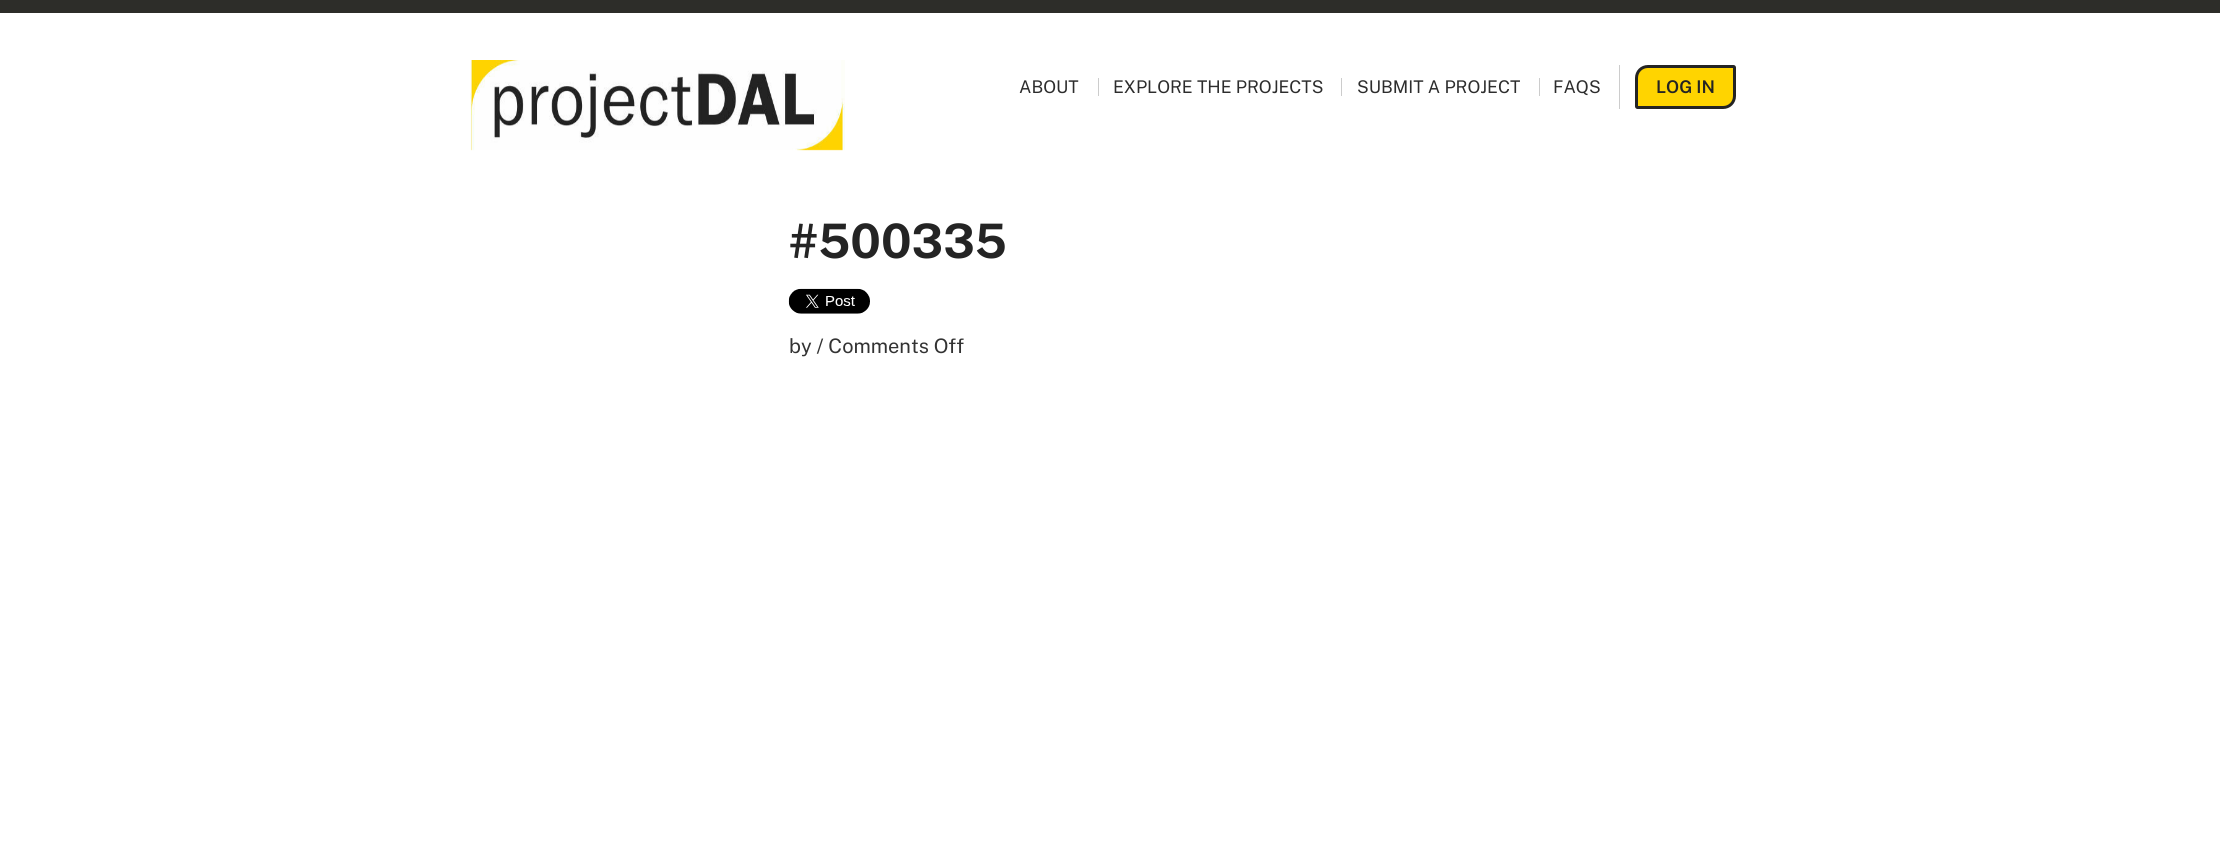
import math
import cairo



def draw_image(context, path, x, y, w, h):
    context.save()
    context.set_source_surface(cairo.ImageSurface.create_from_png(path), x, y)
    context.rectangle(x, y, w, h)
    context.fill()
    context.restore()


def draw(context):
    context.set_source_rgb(1, 1, 1)
    context.paint()
    context.set_source_rgb(45 / 255, 45 / 255, 41 / 255)
    context.rectangle(0, 0, 2220, 13)
    context.fill()
    draw_image(context, "images/1.png", 470, 60, 375, 91)
    context.set_source_rgb(204 / 255, 204 / 255, 204 / 255)
    context.rectangle(1098, 78, 1, 18)
    context.fill()
    context.rectangle(1341, 78, 1, 18)
    context.fill()
    context.rectangle(1539, 78, 1, 18)
    context.fill()
    context.rectangle(1619, 65, 1, 44)
    context.fill()
    context.set_source_rgb(1, 212 / 255, 0)
    context.new_path()
    context.move_to(1648, 66.5)
    context.line_to(1733.5, 66.5)
    context.curve_to(1734, 66.5, 1734.5, 67, 1734.5, 67.5)
    context.line_to(1734.5, 96)
    context.curve_to(1734.5, 102.5, 1729.5, 107.5, 1723, 107.5)
    context.line_to(1637.5, 107.5)
    context.curve_to(1637, 107.5, 1636.5, 107, 1636.5, 106.5)
    context.line_to(1636.5, 78)
    context.curve_to(1636.5, 71.5, 1641.5, 66.5, 1648, 66.5)
    context.close_path()
    context.fill_preserve()
    context.set_source_rgb(36 / 255, 36 / 255, 36 / 255)
    context.set_line_width(3)
    context.stroke()
    draw_image(context, "images/2.png", 788, 288, 82, 26)
    context.select_font_face("Public Sans")
    context.set_font_size(17.5)
    context.set_source_rgb(45 / 255, 45 / 255, 45 / 255)
    context.move_to(1019, 93)
    context.show_text("ABOUT")
    context.move_to(1113, 93)
    context.show_text("EXPLORE THE PROJECTS")
    context.move_to(1357, 93)
    context.show_text("SUBMIT A PROJECT")
    context.move_to(1553, 93)
    context.show_text("FAQS")
    context.select_font_face("Public Sans SemiBold")
    context.set_source_rgb(36 / 255, 36 / 255, 36 / 255)
    context.move_to(1656, 93)
    context.show_text("LOG IN")
    context.select_font_face("Public Sans", cairo.FontSlant.NORMAL, cairo.FontWeight.BOLD)
    context.set_font_size(47.5)
    context.move_to(789, 258)
    context.show_text("#500335")
    context.select_font_face("Public Sans")
    context.set_font_size(20)
    context.set_source_rgb(51 / 255, 51 / 255, 51 / 255)
    context.move_to(789, 353)
    context.show_text("by / Comments Off")


surface = cairo.ImageSurface(cairo.Format.RGB24, 2220, 848)
context = cairo.Context(surface)
options = cairo.FontOptions()
options.set_hint_metrics(cairo.HintMetrics.OFF)
options.set_hint_style(cairo.HintStyle.NONE)
context.set_font_options(options)
context.set_miter_limit(4)
draw(context)
surface.write_to_png("out.png")
